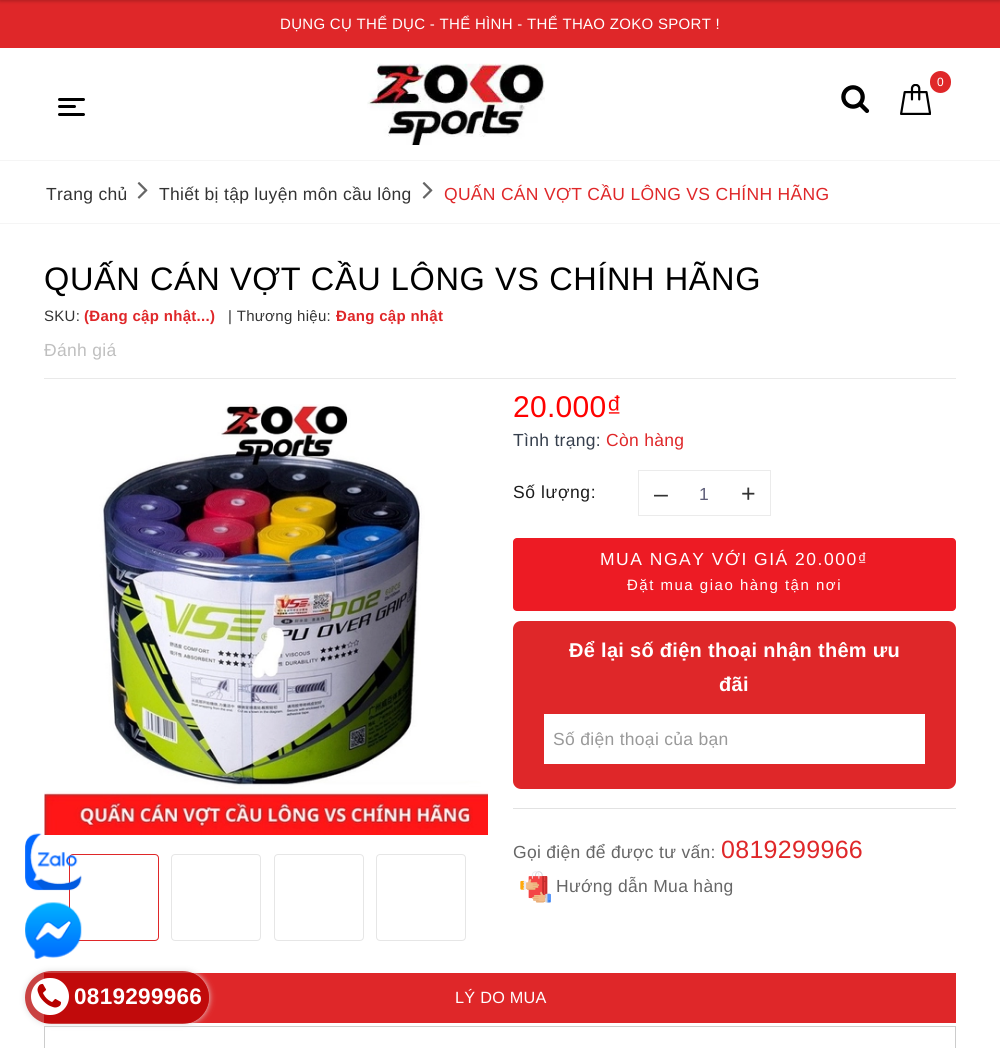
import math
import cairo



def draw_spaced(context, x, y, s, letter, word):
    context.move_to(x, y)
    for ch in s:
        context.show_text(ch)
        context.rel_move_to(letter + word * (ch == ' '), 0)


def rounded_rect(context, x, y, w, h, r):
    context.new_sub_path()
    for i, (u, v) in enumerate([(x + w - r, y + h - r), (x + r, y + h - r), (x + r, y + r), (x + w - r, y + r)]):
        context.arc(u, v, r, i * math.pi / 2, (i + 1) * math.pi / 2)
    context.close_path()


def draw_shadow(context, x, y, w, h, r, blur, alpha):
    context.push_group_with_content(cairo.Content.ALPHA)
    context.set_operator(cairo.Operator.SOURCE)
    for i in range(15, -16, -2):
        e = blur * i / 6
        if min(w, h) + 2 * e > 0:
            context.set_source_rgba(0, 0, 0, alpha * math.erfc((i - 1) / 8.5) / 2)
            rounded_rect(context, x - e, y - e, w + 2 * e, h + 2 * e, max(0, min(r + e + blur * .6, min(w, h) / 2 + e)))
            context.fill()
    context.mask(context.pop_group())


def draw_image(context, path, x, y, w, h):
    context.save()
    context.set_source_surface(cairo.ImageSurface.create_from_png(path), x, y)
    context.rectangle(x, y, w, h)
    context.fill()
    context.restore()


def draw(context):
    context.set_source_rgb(1, 1, 1)
    context.paint()
    context.set_source_rgb(223 / 255, 39 / 255, 41 / 255)
    context.rectangle(0, 0, 1000, 48)
    context.fill()
    context.set_source_rgb(0, 0, 0)
    draw_shadow(context, 0, -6, 1000, 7, 0, 2, 0.25)
    draw_image(context, "images/1.png", 367, 63, 178, 82)
    draw_image(context, "images/2.png", 900, 84, 31, 31)
    context.set_source_rgb(223 / 255, 39 / 255, 41 / 255)
    rounded_rect(context, 930, 71, 21, 22, 10.5)
    context.fill()
    draw_image(context, "images/3.png", 841, 85, 29, 28)
    context.set_source_rgb(0, 0, 0)
    rounded_rect(context, 58, 98, 27, 3, 1.5)
    context.fill()
    rounded_rect(context, 58, 105, 18, 3, 1.5)
    context.fill()
    rounded_rect(context, 58, 113, 27, 3, 1.5)
    context.fill()
    context.set_source_rgb(245 / 255, 245 / 255, 245 / 255)
    context.rectangle(0, 160, 1000, 1)
    context.fill()
    context.rectangle(0, 223, 1000, 1)
    context.fill()
    draw_image(context, "images/4.png", 137, 182, 11, 17)
    draw_image(context, "images/4.png", 422, 182, 11, 17)
    context.set_source_rgb(233 / 255, 233 / 255, 233 / 255)
    context.rectangle(44, 378, 912, 1)
    context.fill()
    draw_image(context, "images/5.png", 44, 404, 444, 431)
    rounded_rect(context, 69.5, 854.5, 89, 86, 3.5)
    context.set_source_rgb(223 / 255, 39 / 255, 41 / 255)
    context.set_line_width(1)
    context.stroke()
    rounded_rect(context, 171.5, 854.5, 89, 86, 3.5)
    context.set_source_rgb(230 / 255, 230 / 255, 230 / 255)
    context.stroke()
    rounded_rect(context, 274.5, 854.5, 89, 86, 3.5)
    context.stroke()
    rounded_rect(context, 376.5, 854.5, 89, 86, 3.5)
    context.stroke()
    context.rectangle(638.5, 470.5, 132, 45)
    context.set_source_rgb(235 / 255, 235 / 255, 235 / 255)
    context.stroke()
    context.set_source_rgb(237 / 255, 27 / 255, 36 / 255)
    rounded_rect(context, 513, 538, 443, 73, 4)
    context.fill()
    context.set_source_rgb(223 / 255, 39 / 255, 41 / 255)
    rounded_rect(context, 513, 621, 443, 168, 8)
    context.fill()
    context.set_source_rgb(1, 1, 1)
    context.rectangle(544, 714, 381, 50)
    context.fill()
    context.set_source_rgb(226 / 255, 226 / 255, 226 / 255)
    context.rectangle(513, 808, 443, 1)
    context.fill()
    draw_image(context, "images/6.png", 520, 871, 31, 32)
    context.set_source_rgb(223 / 255, 39 / 255, 41 / 255)
    context.rectangle(44, 973, 912, 50)
    context.fill()
    context.rectangle(44.5, 1026.5, 911, 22)
    context.set_source_rgb(204 / 255, 204 / 255, 204 / 255)
    context.stroke()
    draw_image(context, "images/7.png", 25, 833, 57, 58)
    draw_image(context, "images/8.png", 25, 902, 57, 57)
    context.save()
    context.set_fill_rule(cairo.FillRule.EVEN_ODD)
    context.new_path()
    context.move_to(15, 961)
    context.line_to(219, 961)
    context.line_to(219, 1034)
    context.line_to(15, 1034)
    context.close_path()
    context.move_to(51.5, 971)
    context.line_to(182.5, 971)
    context.curve_to(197, 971, 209, 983, 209, 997.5)
    context.curve_to(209, 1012, 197, 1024, 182.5, 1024)
    context.line_to(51.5, 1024)
    context.curve_to(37, 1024, 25, 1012, 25, 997.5)
    context.curve_to(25, 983, 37, 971, 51.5, 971)
    context.close_path()
    context.clip()
    context.set_source_rgb(221 / 255, 221 / 255, 221 / 255)
    draw_shadow(context, 25, 971, 184, 53, 26.5, 3, 1)
    context.restore()
    context.set_source_rgba(183 / 255, 1 / 255, 0, 0.74)
    rounded_rect(context, 25, 971, 184, 53, 26.5)
    context.fill()
    context.set_source_rgb(1, 1, 1)
    rounded_rect(context, 31, 978, 38, 37, 18.5)
    context.fill()
    draw_image(context, "images/9.png", 37, 983, 25, 25)
    context.select_font_face("Liberation Sans")
    context.set_font_size(15)
    draw_spaced(context, 280, 29, "DỤNG CỤ THỂ DỤC - THỂ HÌNH - THỂ THAO ZOKO SPORT !", 0.3, 0)
    context.set_font_size(12)
    draw_spaced(context, 937, 86, "0", 0.3, 0)
    context.set_font_size(17.5)
    context.set_source_rgb(51 / 255, 51 / 255, 51 / 255)
    draw_spaced(context, 46, 200, "Trang chủ", 0.3, 0)
    draw_spaced(context, 159, 200, "Thiết bị tập luyện môn cầu lông", 0.3, 0)
    context.set_source_rgb(223 / 255, 39 / 255, 41 / 255)
    draw_spaced(context, 444, 200, "QUẤN CÁN VỢT CẦU LÔNG VS CHÍNH HÃNG", 0.3, 0)
    context.set_font_size(32.5)
    context.set_source_rgb(0, 0, 0)
    draw_spaced(context, 44, 290, "QUẤN CÁN VỢT CẦU LÔNG VS CHÍNH HÃNG", 0.6, 0)
    context.set_font_size(15)
    context.set_source_rgb(51 / 255, 51 / 255, 51 / 255)
    draw_spaced(context, 44, 321, "SKU:", 0.3, 0)
    context.select_font_face("Liberation Sans", cairo.FontSlant.NORMAL, cairo.FontWeight.BOLD)
    context.set_source_rgb(223 / 255, 39 / 255, 41 / 255)
    draw_spaced(context, 84, 321, "(Đang cập nhật...)", 0.3, 0)
    context.select_font_face("Liberation Sans")
    context.set_source_rgb(51 / 255, 51 / 255, 51 / 255)
    draw_spaced(context, 228, 321, "| Thương hiệu:", 0.3, 0)
    context.select_font_face("Liberation Sans", cairo.FontSlant.NORMAL, cairo.FontWeight.BOLD)
    context.set_source_rgb(223 / 255, 39 / 255, 41 / 255)
    draw_spaced(context, 336, 321, "Đang cập nhật", 0.3, 0)
    context.select_font_face("Liberation Sans")
    context.set_font_size(17.5)
    context.set_source_rgb(191 / 255, 191 / 255, 191 / 255)
    draw_spaced(context, 44, 356, "Đánh giá", 0.3, 0)
    context.set_font_size(30)
    context.set_source_rgb(1, 1 / 255, 0)
    draw_spaced(context, 513, 417, "20.000₫", 0.3, 0)
    context.set_font_size(17.5)
    context.set_source_rgb(54 / 255, 63 / 255, 77 / 255)
    draw_spaced(context, 513, 446, "Tình trạng:", 0.3, 0)
    context.set_source_rgb(223 / 255, 39 / 255, 41 / 255)
    draw_spaced(context, 606, 446, "Còn hàng", 0.3, 0)
    context.set_source_rgb(28 / 255, 28 / 255, 28 / 255)
    draw_spaced(context, 513, 498, "Số lượng:", 0.6, 0)
    context.set_font_size(25)
    context.set_source_rgb(51 / 255, 51 / 255, 51 / 255)
    draw_spaced(context, 654, 502, "–", 0.3, 0)
    context.set_font_size(17.5)
    context.set_source_rgb(94 / 255, 94 / 255, 120 / 255)
    draw_spaced(context, 699, 500, "1", 0.3, 0)
    context.set_font_size(25)
    context.set_source_rgb(51 / 255, 51 / 255, 51 / 255)
    draw_spaced(context, 741, 502, "+", 0.3, 0)
    context.set_font_size(17.5)
    context.set_source_rgb(1, 1, 1)
    draw_spaced(context, 600, 565, "MUA NGAY VỚI GIÁ 20.000₫", 1.5, 0)
    context.set_font_size(15)
    draw_spaced(context, 627, 590, "Đặt mua giao hàng tận nơi", 1.5, 0)
    context.select_font_face("Liberation Sans", cairo.FontSlant.NORMAL, cairo.FontWeight.BOLD)
    context.set_font_size(20)
    draw_spaced(context, 569, 657, "Để lại số điện thoại nhận thêm ưu", 0.3, 0)
    draw_spaced(context, 719, 691, "đãi", 0.3, 0)
    context.select_font_face("Liberation Sans")
    context.set_font_size(17.5)
    context.set_source_rgb(153 / 255, 153 / 255, 153 / 255)
    draw_spaced(context, 553, 745, "Số điện thoại của bạn", 0.3, 0)
    context.set_source_rgb(102 / 255, 102 / 255, 102 / 255)
    draw_spaced(context, 513, 858, "Gọi điện để được tư vấn:", 0.3, 0)
    context.set_font_size(25)
    context.set_source_rgb(223 / 255, 39 / 255, 41 / 255)
    draw_spaced(context, 721, 858, "0819299966", 0.3, 0)
    context.set_font_size(17.5)
    context.set_source_rgb(102 / 255, 102 / 255, 102 / 255)
    draw_spaced(context, 556, 892, "Hướng dẫn Mua hàng", 0.3, 0)
    context.set_font_size(16.25)
    context.set_source_rgb(1, 1, 1)
    draw_spaced(context, 455, 1003, "LÝ DO MUA", 0.25, 0)
    context.select_font_face("Liberation Sans", cairo.FontSlant.NORMAL, cairo.FontWeight.BOLD)
    context.set_font_size(22.5)
    draw_spaced(context, 74, 1004, "0819299966", 0.3, 0)


surface = cairo.ImageSurface(cairo.Format.RGB24, 1000, 1048)
context = cairo.Context(surface)
options = cairo.FontOptions()
options.set_hint_metrics(cairo.HintMetrics.OFF)
options.set_hint_style(cairo.HintStyle.NONE)
context.set_font_options(options)
context.set_miter_limit(4)
draw(context)
surface.write_to_png("out.png")
